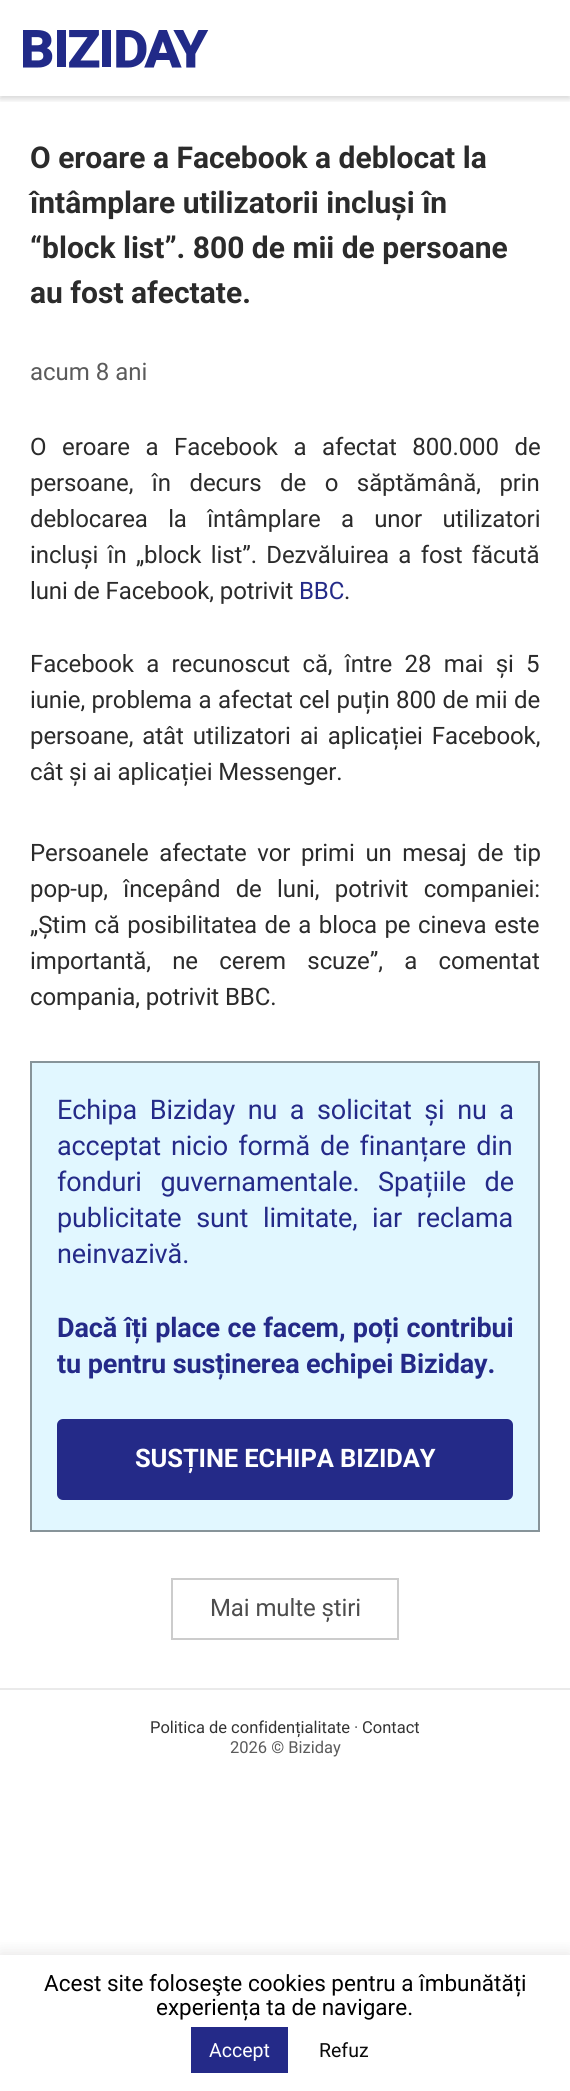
import math
import cairo



def draw_spaced(context, x, y, s, letter, word):
    context.move_to(x, y)
    for ch in s:
        context.show_text(ch)
        context.rel_move_to(letter + word * (ch == ' '), 0)


def rounded_rect(context, x, y, w, h, r):
    context.new_sub_path()
    for i, (u, v) in enumerate([(x + w - r, y + h - r), (x + r, y + h - r), (x + r, y + r), (x + w - r, y + r)]):
        context.arc(u, v, r, i * math.pi / 2, (i + 1) * math.pi / 2)
    context.close_path()


def draw_shadow(context, x, y, w, h, r, blur, alpha):
    context.push_group_with_content(cairo.Content.ALPHA)
    context.set_operator(cairo.Operator.SOURCE)
    for i in range(15, -16, -2):
        e = blur * i / 6
        if min(w, h) + 2 * e > 0:
            context.set_source_rgba(0, 0, 0, alpha * math.erfc((i - 1) / 8.5) / 2)
            rounded_rect(context, x - e, y - e, w + 2 * e, h + 2 * e, max(0, min(r + e + blur * .6, min(w, h) / 2 + e)))
            context.fill()
    context.mask(context.pop_group())


def draw_image(context, path, x, y, w, h):
    context.save()
    context.set_source_surface(cairo.ImageSurface.create_from_png(path), x, y)
    context.rectangle(x, y, w, h)
    context.fill()
    context.restore()


def draw(context):
    context.set_source_rgb(1, 1, 1)
    context.paint()
    context.save()
    context.rectangle(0, 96, 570, 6)
    context.clip()
    context.set_source_rgb(0, 0, 0)
    draw_shadow(context, 0, 3, 570, 96, 0, 3, 0.16)
    context.restore()
    draw_image(context, "images/1.png", 23, 30, 186, 38)
    context.set_source_rgb(225 / 255, 247 / 255, 1)
    context.rectangle(31, 1062, 508, 469)
    context.fill_preserve()
    context.set_source_rgb(135 / 255, 148 / 255, 153 / 255)
    context.stroke()
    context.set_source_rgb(36 / 255, 42 / 255, 136 / 255)
    rounded_rect(context, 57, 1419, 456, 81, 6)
    context.fill()
    context.rectangle(172, 1579, 226, 60)
    context.set_source_rgb(204 / 255, 204 / 255, 204 / 255)
    context.stroke()
    context.set_source_rgb(234 / 255, 234 / 255, 234 / 255)
    context.rectangle(0, 1688, 570, 2)
    context.fill()
    context.save()
    context.rectangle(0, 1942, 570, 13)
    context.clip()
    context.set_source_rgb(172 / 255, 171 / 255, 171 / 255)
    draw_shadow(context, 0, 1953, 570, 137, 0, 7.5, 0.3)
    context.restore()
    context.set_source_rgb(36 / 255, 42 / 255, 136 / 255)
    context.rectangle(191, 2027, 97, 46)
    context.fill()
    context.select_font_face("Roboto", cairo.FontSlant.NORMAL, cairo.FontWeight.BOLD)
    context.set_font_size(30)
    context.set_source_rgb(43 / 255, 43 / 255, 43 / 255)
    context.move_to(30, 168)
    context.show_text("O eroare a Facebook a deblocat la")
    context.move_to(30, 213)
    context.show_text("întâmplare utilizatorii incluși în")
    context.move_to(30, 258)
    context.show_text("“block list”. 800 de mii de persoane")
    context.move_to(30, 303)
    context.show_text("au fost afectate.")
    context.select_font_face("Roboto")
    context.set_font_size(24)
    context.set_source_rgb(91 / 255, 91 / 255, 91 / 255)
    context.move_to(30, 380)
    context.show_text("acum 8 ani")
    context.set_source_rgb(43 / 255, 43 / 255, 43 / 255)
    draw_spaced(context, 30, 455, "O eroare a Facebook a afectat 800.000 de", -0.1, 9.75)
    draw_spaced(context, 30, 491, "persoane, în decurs de o săptămână, prin", -0.1, 12.75)
    draw_spaced(context, 30, 527, "deblocarea la întâmplare a unor utilizatori", -0.1, 14.5)
    draw_spaced(context, 30, 563, "incluși în „block list”. Dezvăluirea a fost făcută", -0.1, 3.5)
    draw_spaced(context, 30, 599, "luni de Facebook, potrivit", -0.1, 0)
    context.set_source_rgb(36 / 255, 42 / 255, 136 / 255)
    draw_spaced(context, 299, 599, "BBC", -0.1, 0)
    context.set_source_rgb(43 / 255, 43 / 255, 43 / 255)
    draw_spaced(context, 344, 599, ".", -0.1, 0)
    draw_spaced(context, 30, 672, "Facebook a recunoscut că, între 28 mai și 5", -0.1, 6.5)
    draw_spaced(context, 30, 708, "iunie, problema a afectat cel puțin 800 de mii de", -0.1, 0.6)
    draw_spaced(context, 30, 744, "persoane, atât utilizatori ai aplicației Facebook,", -0.1, 3.25)
    draw_spaced(context, 30, 780, "cât și ai aplicației Messenger.", -0.1, 0)
    draw_spaced(context, 30, 861, "Persoanele afectate vor primi un mesaj de tip", -0.1, 4.75)
    draw_spaced(context, 30, 897, "pop-up, începând de luni, potrivit companiei:", -0.1, 9.5)
    draw_spaced(context, 30, 933, "„Știm că posibilitatea de a bloca pe cineva este", -0.1, 1.75)
    draw_spaced(context, 30, 969, "importantă, ne cerem scuze”, a comentat", -0.1, 15.5)
    draw_spaced(context, 30, 1005, "compania, potrivit BBC.", -0.1, 0)
    context.set_font_size(27)
    context.set_source_rgb(36 / 255, 42 / 255, 136 / 255)
    draw_spaced(context, 57, 1119, "Echipa Biziday nu a solicitat și nu a", -0.1, 6)
    draw_spaced(context, 57, 1155, "acceptat nicio formă de finanțare din", -0.1, 3.5)
    draw_spaced(context, 57, 1191, "fonduri guvernamentale. Spațiile de", -0.1, 12)
    draw_spaced(context, 57, 1227, "publicitate sunt limitate, iar reclama", -0.1, 8)
    draw_spaced(context, 57, 1263, "neinvazivă.", -0.1, 0)
    context.select_font_face("Roboto", cairo.FontSlant.NORMAL, cairo.FontWeight.BOLD)
    draw_spaced(context, 57, 1337, "Dacă îți place ce facem, poți contribui", -0.1, 0.75)
    draw_spaced(context, 57, 1373, "tu pentru susținerea echipei Biziday.", -0.1, 0)
    context.set_font_size(25.5)
    context.set_source_rgb(1, 1, 1)
    draw_spaced(context, 135, 1467, "SUSȚINE ECHIPA BIZIDAY", -0.1, 0)
    context.select_font_face("Roboto")
    context.set_font_size(24)
    context.set_source_rgb(77 / 255, 77 / 255, 77 / 255)
    draw_spaced(context, 210, 1616, "Mai multe știri", -0.1, 0)
    context.set_font_size(16.5)
    context.set_source_rgb(51 / 255, 51 / 255, 51 / 255)
    context.move_to(150, 1733)
    context.show_text("Politica de confidențialitate")
    context.set_source_rgb(91 / 255, 91 / 255, 91 / 255)
    context.move_to(354, 1733)
    context.show_text("·")
    context.set_source_rgb(51 / 255, 51 / 255, 51 / 255)
    context.move_to(362, 1733)
    context.show_text("Contact")
    context.set_source_rgb(91 / 255, 91 / 255, 91 / 255)
    context.move_to(230, 1753)
    context.show_text("2026 © Biziday")
    context.set_font_size(22.5)
    context.set_source_rgb(0, 0, 0)
    context.move_to(44, 1991)
    context.show_text("Acest site foloseşte cookies pentru a îmbunătăți")
    context.move_to(156, 2015)
    context.show_text("experiența ta de navigare.")
    context.set_font_size(19.5)
    context.set_source_rgb(1, 1, 1)
    context.move_to(209, 2057)
    context.show_text("Accept")
    context.set_source_rgb(10 / 255, 10 / 255, 10 / 255)
    context.move_to(319, 2057)
    context.show_text("Refuz")


surface = cairo.ImageSurface(cairo.Format.RGB24, 570, 2091)
context = cairo.Context(surface)
options = cairo.FontOptions()
options.set_hint_metrics(cairo.HintMetrics.OFF)
options.set_hint_style(cairo.HintStyle.NONE)
context.set_font_options(options)
context.set_miter_limit(4)
draw(context)
surface.write_to_png("out.png")
